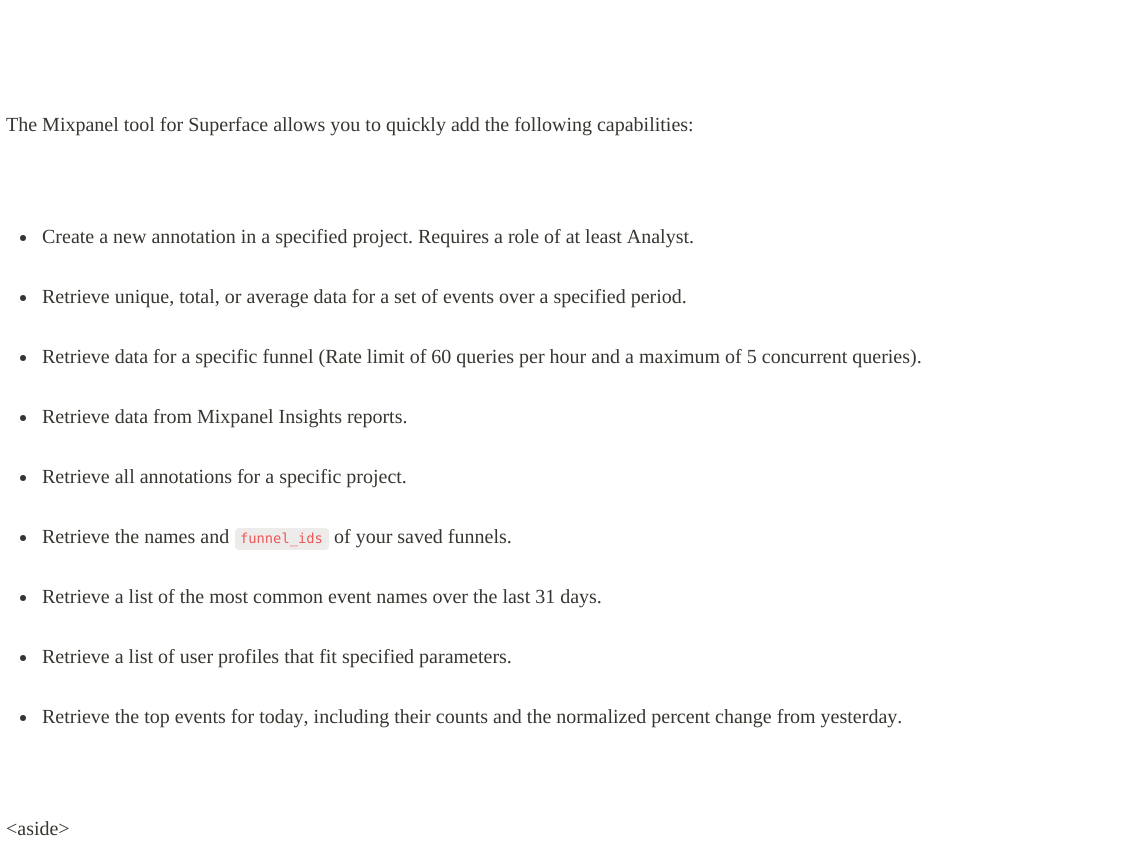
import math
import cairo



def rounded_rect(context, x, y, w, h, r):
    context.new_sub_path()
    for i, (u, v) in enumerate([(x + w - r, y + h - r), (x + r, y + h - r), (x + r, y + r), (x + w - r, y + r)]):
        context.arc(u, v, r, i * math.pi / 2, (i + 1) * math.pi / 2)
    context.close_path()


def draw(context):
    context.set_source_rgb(1, 1, 1)
    context.paint()
    context.set_source_rgb(55 / 255, 53 / 255, 47 / 255)
    context.arc(23, 238, 3, 0, 2 * math.pi)
    context.fill()
    context.arc(23, 298, 3, 0, 2 * math.pi)
    context.fill()
    context.arc(23, 358, 3, 0, 2 * math.pi)
    context.fill()
    context.arc(23, 418, 3, 0, 2 * math.pi)
    context.fill()
    context.arc(23, 478, 3, 0, 2 * math.pi)
    context.fill()
    context.arc(23, 538, 3, 0, 2 * math.pi)
    context.fill()
    context.set_source_rgb(237 / 255, 236 / 255, 235 / 255)
    rounded_rect(context, 235, 528, 94, 22, 4)
    context.fill()
    context.set_source_rgb(55 / 255, 53 / 255, 47 / 255)
    context.arc(23, 598, 3, 0, 2 * math.pi)
    context.fill()
    context.arc(23, 658, 3, 0, 2 * math.pi)
    context.fill()
    context.arc(23, 718, 3, 0, 2 * math.pi)
    context.fill()
    context.select_font_face("Liberation Serif")
    context.set_font_size(20)
    context.move_to(6, 131)
    context.show_text("The Mixpanel tool for Superface allows you to quickly add the following capabilities:")
    context.move_to(42, 243)
    context.show_text("Create a new annotation in a specified project. Requires a role of at least Analyst.")
    context.move_to(42, 303)
    context.show_text("Retrieve unique, total, or average data for a set of events over a specified period.")
    context.move_to(42, 363)
    context.show_text("Retrieve data for a specific funnel (Rate limit of 60 queries per hour and a maximum of 5 concurrent queries).")
    context.move_to(42, 423)
    context.show_text("Retrieve data from Mixpanel Insights reports.")
    context.move_to(42, 483)
    context.show_text("Retrieve all annotations for a specific project.")
    context.move_to(42, 543)
    context.show_text("Retrieve the names and")
    context.select_font_face("DejaVu Sans Mono")
    context.set_font_size(13.75)
    context.set_source_rgb(235 / 255, 87 / 255, 87 / 255)
    context.move_to(240, 543)
    context.show_text("funnel_ids")
    context.select_font_face("Liberation Serif")
    context.set_font_size(20)
    context.set_source_rgb(55 / 255, 53 / 255, 47 / 255)
    context.move_to(334, 543)
    context.show_text("of your saved funnels.")
    context.move_to(42, 603)
    context.show_text("Retrieve a list of the most common event names over the last 31 days.")
    context.move_to(42, 663)
    context.show_text("Retrieve a list of user profiles that fit specified parameters.")
    context.move_to(42, 723)
    context.show_text("Retrieve the top events for today, including their counts and the normalized percent change from yesterday.")
    context.move_to(6, 835)
    context.show_text("<aside>")


surface = cairo.ImageSurface(cairo.Format.RGB24, 1137, 841)
context = cairo.Context(surface)
options = cairo.FontOptions()
options.set_hint_metrics(cairo.HintMetrics.OFF)
options.set_hint_style(cairo.HintStyle.NONE)
context.set_font_options(options)
context.set_miter_limit(4)
draw(context)
surface.write_to_png("out.png")
